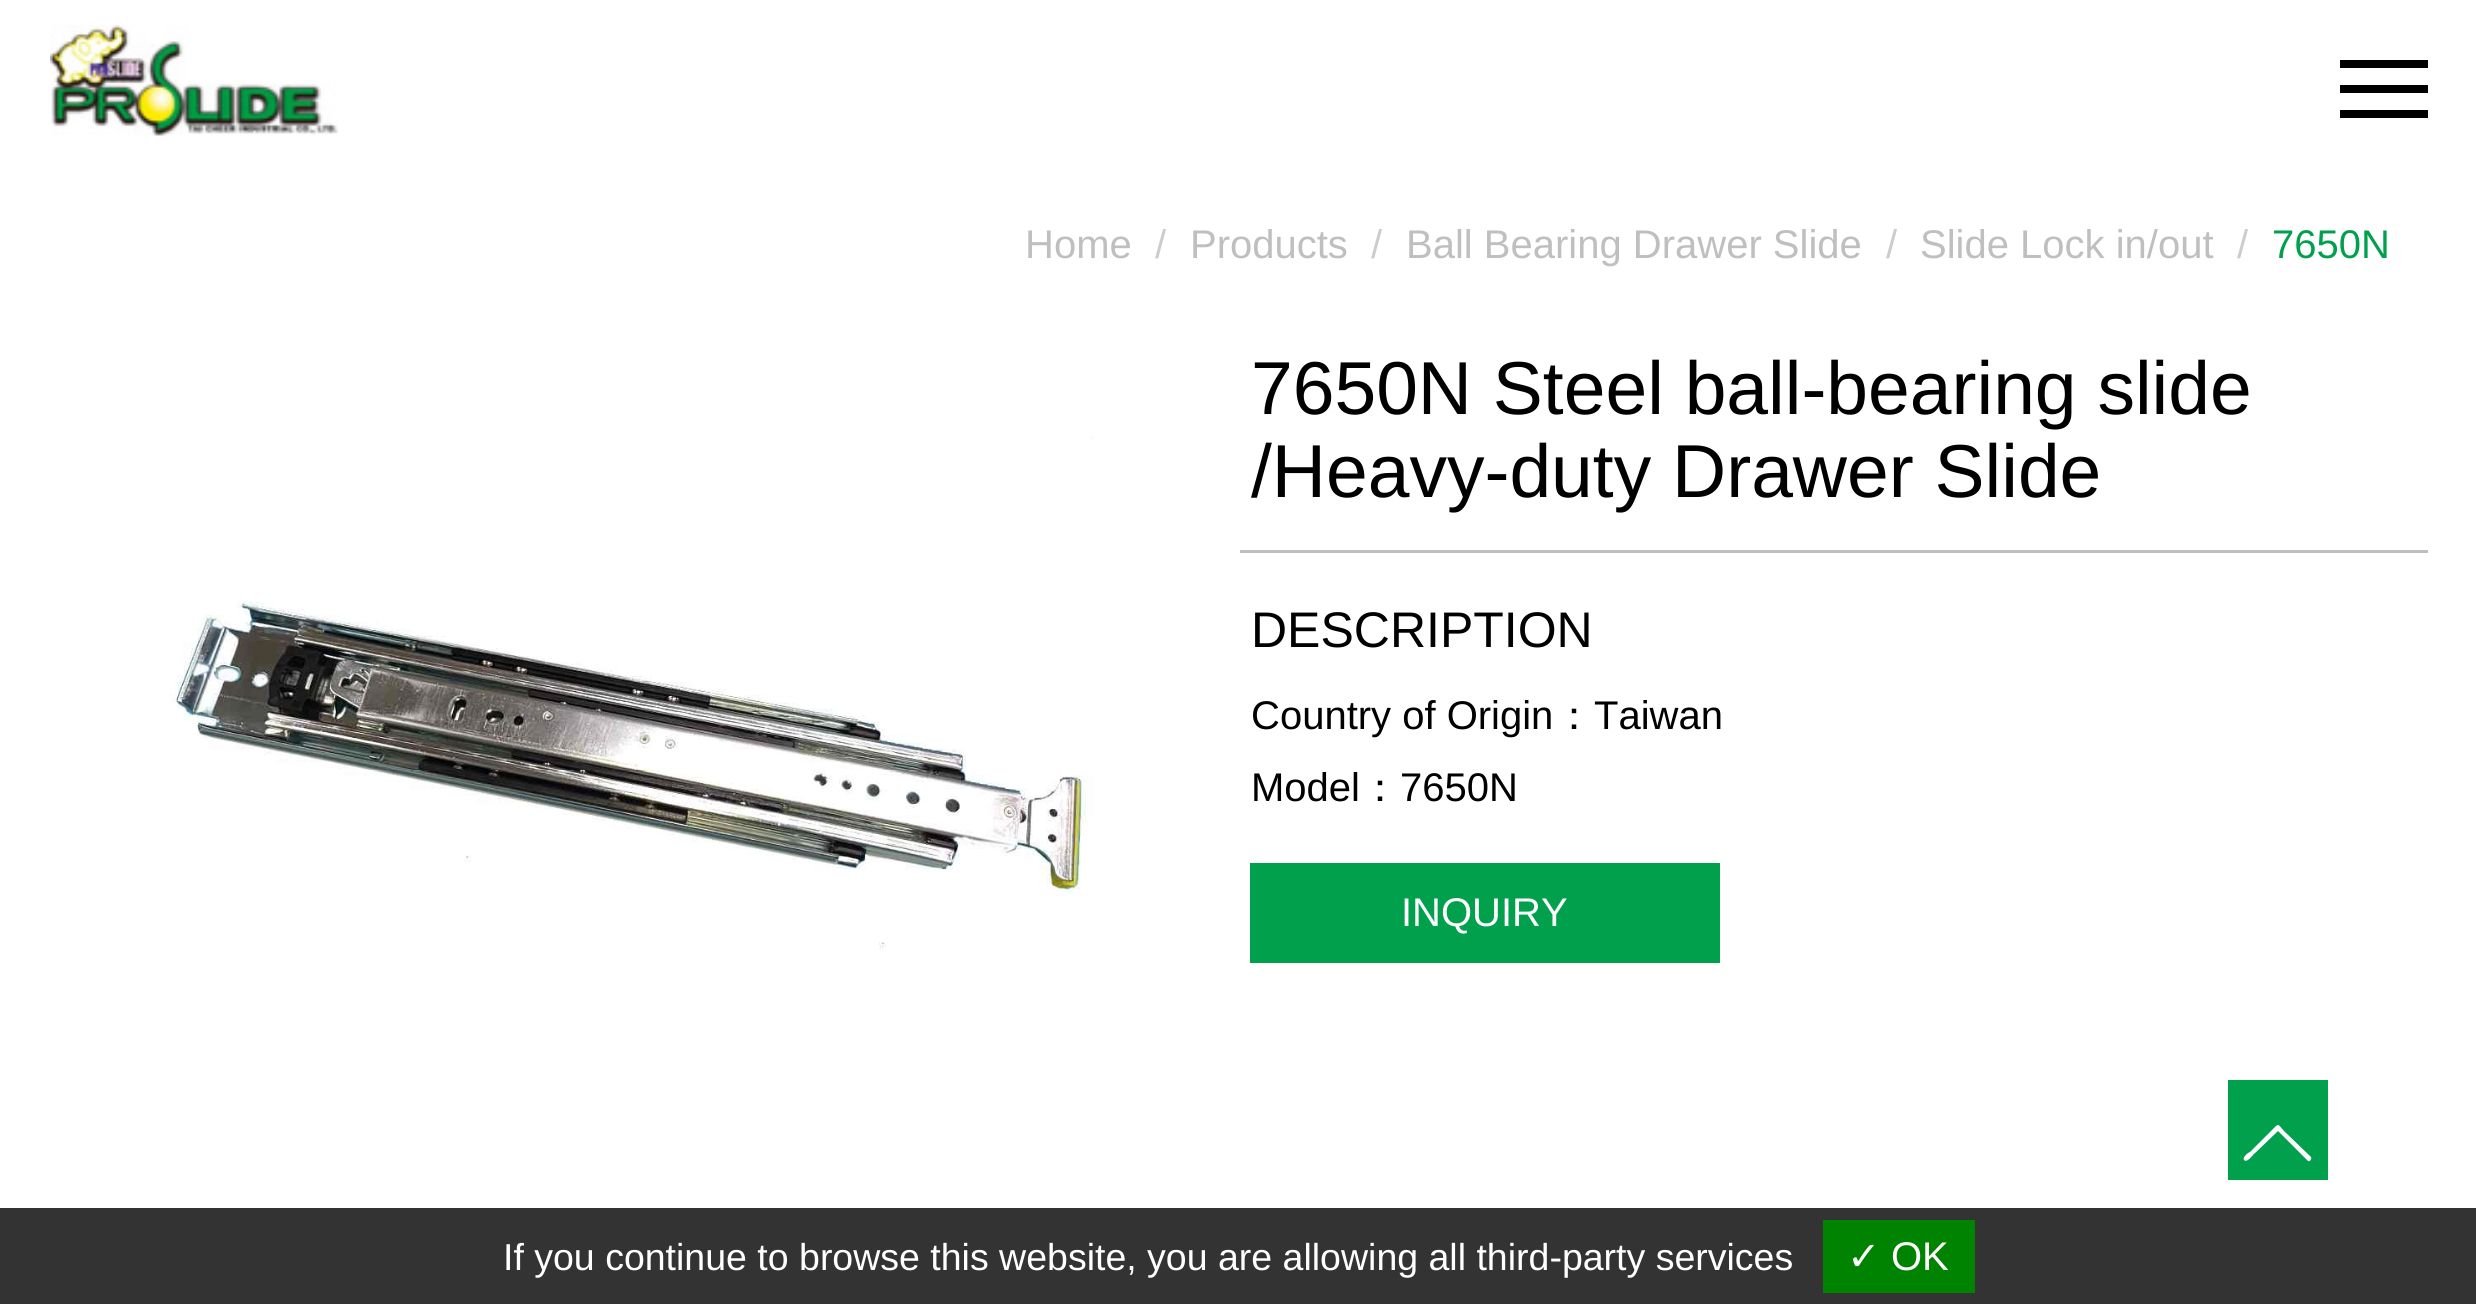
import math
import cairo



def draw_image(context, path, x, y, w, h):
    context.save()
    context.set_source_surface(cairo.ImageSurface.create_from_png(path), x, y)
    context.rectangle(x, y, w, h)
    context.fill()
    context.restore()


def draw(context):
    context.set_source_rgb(1, 1, 1)
    context.paint()
    draw_image(context, "images/1.png", 50, 25, 288, 111)
    context.set_source_rgb(0, 0, 0)
    context.rectangle(2340, 60, 88, 8)
    context.fill()
    context.rectangle(2340, 85, 88, 8)
    context.fill()
    context.rectangle(2340, 110, 88, 8)
    context.fill()
    draw_image(context, "images/2.png", 170, 436, 923, 514)
    context.set_source_rgb(191 / 255, 191 / 255, 191 / 255)
    context.rectangle(1240, 550, 1188, 3)
    context.fill()
    context.set_source_rgb(0, 160 / 255, 77 / 255)
    context.rectangle(1250, 863, 470, 100)
    context.fill()
    context.rectangle(2228, 1080, 100, 100)
    context.fill()
    context.set_source_rgb(1, 1, 1)
    context.new_path()
    context.move_to(2244, 1160)
    context.curve_to(2247, 1163, 2252, 1156, 2253, 1155)
    context.line_to(2278, 1131)
    context.line_to(2308, 1161)
    context.curve_to(2310, 1162, 2312, 1159, 2311, 1157)
    context.line_to(2284, 1131)
    context.curve_to(2277, 1123, 2279, 1123, 2271, 1131)
    context.line_to(2250, 1152)
    context.curve_to(2249, 1152, 2242, 1157, 2244, 1160)
    context.close_path()
    context.fill()
    context.set_source_rgb(51 / 255, 51 / 255, 51 / 255)
    context.rectangle(0, 1208, 2476, 96)
    context.fill()
    context.set_source_rgb(0, 131 / 255, 0)
    context.rectangle(1823, 1220, 152, 73)
    context.fill()
    context.select_font_face("Liberation Sans")
    context.set_font_size(40)
    context.set_source_rgb(191 / 255, 191 / 255, 191 / 255)
    context.move_to(1025, 258)
    context.show_text("Home")
    context.set_source_rgb(204 / 255, 204 / 255, 204 / 255)
    context.move_to(1155, 258)
    context.show_text("/")
    context.set_source_rgb(191 / 255, 191 / 255, 191 / 255)
    context.move_to(1190, 258)
    context.show_text("Products")
    context.set_source_rgb(204 / 255, 204 / 255, 204 / 255)
    context.move_to(1371, 258)
    context.show_text("/")
    context.set_source_rgb(191 / 255, 191 / 255, 191 / 255)
    context.move_to(1406, 258)
    context.show_text("Ball Bearing Drawer Slide")
    context.set_source_rgb(204 / 255, 204 / 255, 204 / 255)
    context.move_to(1886, 258)
    context.show_text("/")
    context.set_source_rgb(191 / 255, 191 / 255, 191 / 255)
    context.move_to(1920, 258)
    context.show_text("Slide Lock in/out")
    context.set_source_rgb(204 / 255, 204 / 255, 204 / 255)
    context.move_to(2237, 258)
    context.show_text("/")
    context.set_source_rgb(0, 160 / 255, 77 / 255)
    context.move_to(2272, 258)
    context.show_text("7650N")
    context.set_font_size(75)
    context.set_source_rgb(0, 0, 0)
    context.move_to(1251, 414)
    context.show_text("7650N Steel ball-bearing slide")
    context.move_to(1251, 497)
    context.show_text("/Heavy-duty Drawer Slide")
    context.set_font_size(50)
    context.move_to(1251, 647)
    context.show_text("DESCRIPTION")
    context.set_font_size(40)
    context.move_to(1251, 729)
    context.show_text("Country of Origin")
    context.select_font_face("WenQuanYi Zen Hei Medium")
    context.move_to(1554, 729)
    context.show_text("：")
    context.select_font_face("Liberation Sans")
    context.move_to(1594, 729)
    context.show_text("Taiwan")
    context.move_to(1251, 801)
    context.show_text("Model")
    context.select_font_face("WenQuanYi Zen Hei Medium")
    context.move_to(1360, 801)
    context.show_text("：")
    context.select_font_face("Liberation Sans")
    context.move_to(1400, 801)
    context.show_text("7650N")
    context.set_source_rgb(1, 1, 1)
    context.move_to(1401, 926)
    context.show_text("INQUIRY")
    context.set_font_size(37.5)
    context.move_to(503, 1270)
    context.show_text("If you continue to browse this website, you are allowing all third-party services")
    context.select_font_face("DejaVu Sans")
    context.set_font_size(40)
    context.move_to(1847, 1270)
    context.show_text("✓")
    context.select_font_face("Liberation Sans")
    context.move_to(1891, 1270)
    context.show_text("OK")


surface = cairo.ImageSurface(cairo.Format.RGB24, 2476, 1304)
context = cairo.Context(surface)
options = cairo.FontOptions()
options.set_hint_metrics(cairo.HintMetrics.OFF)
options.set_hint_style(cairo.HintStyle.NONE)
context.set_font_options(options)
context.set_miter_limit(4)
draw(context)
surface.write_to_png("out.png")
